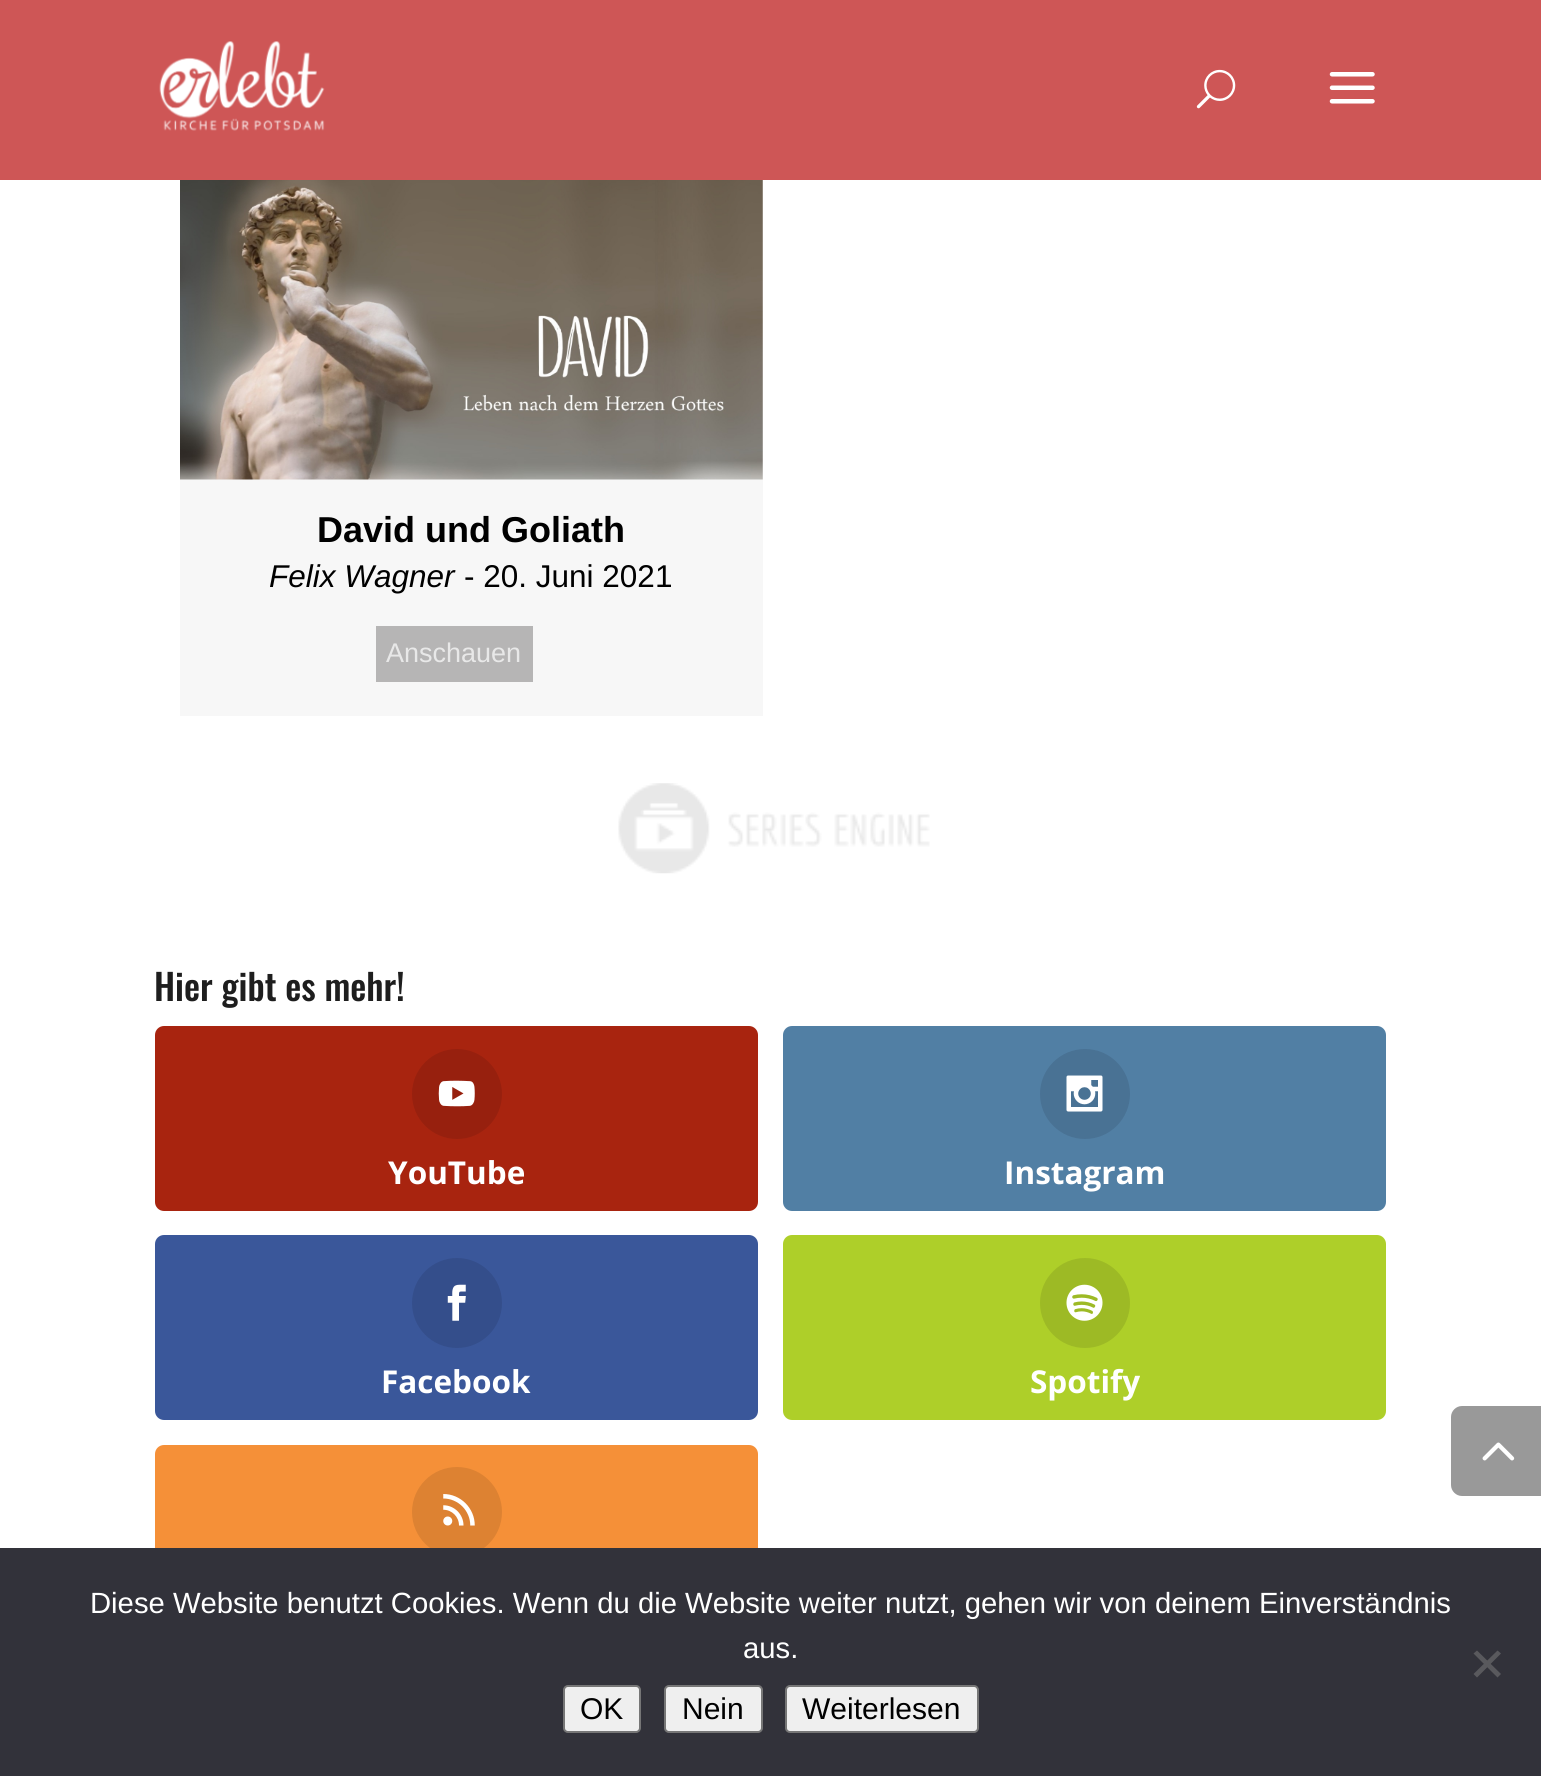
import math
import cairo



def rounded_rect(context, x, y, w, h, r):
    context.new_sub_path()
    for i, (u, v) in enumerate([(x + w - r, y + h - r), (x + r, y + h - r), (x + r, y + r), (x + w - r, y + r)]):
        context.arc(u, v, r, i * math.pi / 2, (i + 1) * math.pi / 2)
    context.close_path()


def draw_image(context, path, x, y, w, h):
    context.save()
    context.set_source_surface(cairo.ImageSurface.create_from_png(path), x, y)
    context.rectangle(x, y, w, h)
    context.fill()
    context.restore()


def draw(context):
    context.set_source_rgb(1, 1, 1)
    context.paint()
    context.set_source_rgb(206 / 255, 86 / 255, 86 / 255)
    context.rectangle(0, 0, 1541, 180)
    context.fill()
    draw_image(context, "images/1.png", 159, 41, 166, 90)
    draw_image(context, "images/2.png", 1196, 69, 40, 40)
    draw_image(context, "images/3.png", 1329, 72, 46, 32)
    context.set_source_rgb(247 / 255, 247 / 255, 247 / 255)
    context.rectangle(180, 180, 583, 536)
    context.fill()
    draw_image(context, "images/4.png", 180, 180, 583, 300)
    context.set_source_rgb(182 / 255, 181 / 255, 181 / 255)
    context.rectangle(376, 626, 157, 56)
    context.fill()
    draw_image(context, "images/5.png", 618, 783, 312, 91)
    context.set_source_rgb(168 / 255, 36 / 255, 15 / 255)
    rounded_rect(context, 155, 1026, 603, 185, 9)
    context.fill()
    context.set_source_rgb(151 / 255, 32 / 255, 14 / 255)
    context.arc(457, 1094, 45, 0, 2 * math.pi)
    context.fill()
    draw_image(context, "images/6.png", 438, 1080, 37, 27)
    context.set_source_rgb(81 / 255, 127 / 255, 164 / 255)
    rounded_rect(context, 783, 1026, 603, 185, 9)
    context.fill()
    context.set_source_rgb(73 / 255, 114 / 255, 148 / 255)
    context.arc(1085, 1094, 45, 0, 2 * math.pi)
    context.fill()
    draw_image(context, "images/7.png", 1066, 1075, 37, 37)
    context.set_source_rgb(58 / 255, 87 / 255, 154 / 255)
    rounded_rect(context, 155, 1235, 603, 185, 9)
    context.fill()
    context.set_source_rgb(52 / 255, 78 / 255, 139 / 255)
    context.arc(457, 1303, 45, 0, 2 * math.pi)
    context.fill()
    draw_image(context, "images/8.png", 447, 1284, 19, 37)
    context.set_source_rgb(174 / 255, 207 / 255, 41 / 255)
    rounded_rect(context, 783, 1235, 603, 185, 9)
    context.fill()
    context.set_source_rgb(157 / 255, 186 / 255, 37 / 255)
    context.arc(1085, 1303, 45, 0, 2 * math.pi)
    context.fill()
    draw_image(context, "images/9.png", 1066, 1284, 37, 37)
    context.set_source_rgb(245 / 255, 144 / 255, 56 / 255)
    rounded_rect(context, 155, 1445, 603, 184, 9)
    context.fill()
    context.set_source_rgb(221 / 255, 130 / 255, 50 / 255)
    context.arc(457, 1512, 45, 0, 2 * math.pi)
    context.fill()
    draw_image(context, "images/10.png", 443, 1494, 32, 32)
    context.set_source_rgb(153 / 255, 153 / 255, 153 / 255)
    context.new_path()
    context.move_to(1462, 1406)
    context.line_to(1541, 1406)
    context.line_to(1541, 1496)
    context.line_to(1462, 1496)
    context.curve_to(1456, 1496, 1451, 1491, 1451, 1485)
    context.line_to(1451, 1417)
    context.curve_to(1451, 1411, 1456, 1406, 1462, 1406)
    context.close_path()
    context.fill()
    draw_image(context, "images/11.png", 1482, 1442, 33, 19)
    context.set_source_rgb(50 / 255, 50 / 255, 58 / 255)
    context.rectangle(0, 1548, 1541, 228)
    context.fill()
    context.set_source_rgb(89 / 255, 89 / 255, 93 / 255)
    context.new_path()
    context.move_to(1497.5, 1650.5)
    context.line_to(1501, 1653.5)
    context.line_to(1477, 1677.5)
    context.line_to(1473.5, 1674)
    context.close_path()
    context.fill()
    context.new_path()
    context.move_to(1473.5, 1653.5)
    context.line_to(1477, 1650.5)
    context.line_to(1501, 1674)
    context.line_to(1497.5, 1677.5)
    context.close_path()
    context.fill()
    context.set_source_rgb(239 / 255, 239 / 255, 239 / 255)
    rounded_rect(context, 564, 1686, 76, 46, 4)
    context.fill_preserve()
    context.set_source_rgb(118 / 255, 118 / 255, 118 / 255)
    context.stroke()
    context.set_source_rgb(239 / 255, 239 / 255, 239 / 255)
    rounded_rect(context, 665, 1686, 97, 46, 4)
    context.fill_preserve()
    context.set_source_rgb(118 / 255, 118 / 255, 118 / 255)
    context.stroke()
    context.set_source_rgb(239 / 255, 239 / 255, 239 / 255)
    rounded_rect(context, 786, 1686, 192, 46, 4)
    context.fill_preserve()
    context.set_source_rgb(118 / 255, 118 / 255, 118 / 255)
    context.stroke()
    context.select_font_face("Liberation Sans", cairo.FontSlant.NORMAL, cairo.FontWeight.BOLD)
    context.set_font_size(36)
    context.set_source_rgb(0, 0, 0)
    context.move_to(317, 542)
    context.show_text("David und Goliath")
    context.select_font_face("Liberation Sans", cairo.FontSlant.ITALIC)
    context.set_font_size(31.5)
    context.move_to(269, 587)
    context.show_text("Felix Wagner")
    context.select_font_face("Liberation Sans")
    context.move_to(464, 587)
    context.show_text("- 20. Juni 2021")
    context.set_font_size(27)
    context.set_source_rgb(232 / 255, 232 / 255, 232 / 255)
    context.move_to(386, 662)
    context.show_text("Anschauen")
    context.select_font_face("Oswald Medium")
    context.set_font_size(36)
    context.set_source_rgb(30 / 255, 30 / 255, 30 / 255)
    context.move_to(154, 1001)
    context.show_text("Hier gibt es mehr!")
    context.select_font_face("Open Sans", cairo.FontSlant.NORMAL, cairo.FontWeight.BOLD)
    context.set_font_size(31.5)
    context.set_source_rgb(1, 1, 1)
    context.move_to(388, 1184)
    context.show_text("YouTube")
    context.move_to(1004, 1184)
    context.show_text("Instagram")
    context.move_to(381, 1393)
    context.show_text("Facebook")
    context.move_to(1030, 1393)
    context.show_text("Spotify")
    context.select_font_face("Liberation Sans")
    context.set_font_size(29.25)
    context.move_to(90, 1613)
    context.show_text("Diese Website benutzt Cookies. Wenn du die Website weiter nutzt, gehen wir von deinem Einverständnis")
    context.move_to(743, 1658)
    context.show_text("aus.")
    context.set_font_size(30)
    context.set_source_rgb(0, 0, 0)
    context.move_to(580, 1719)
    context.show_text("OK")
    context.move_to(682, 1719)
    context.show_text("Nein")
    context.move_to(802, 1719)
    context.show_text("Weiterlesen")


surface = cairo.ImageSurface(cairo.Format.RGB24, 1541, 1776)
context = cairo.Context(surface)
options = cairo.FontOptions()
options.set_hint_metrics(cairo.HintMetrics.OFF)
options.set_hint_style(cairo.HintStyle.NONE)
context.set_font_options(options)
context.set_miter_limit(4)
draw(context)
surface.write_to_png("out.png")
